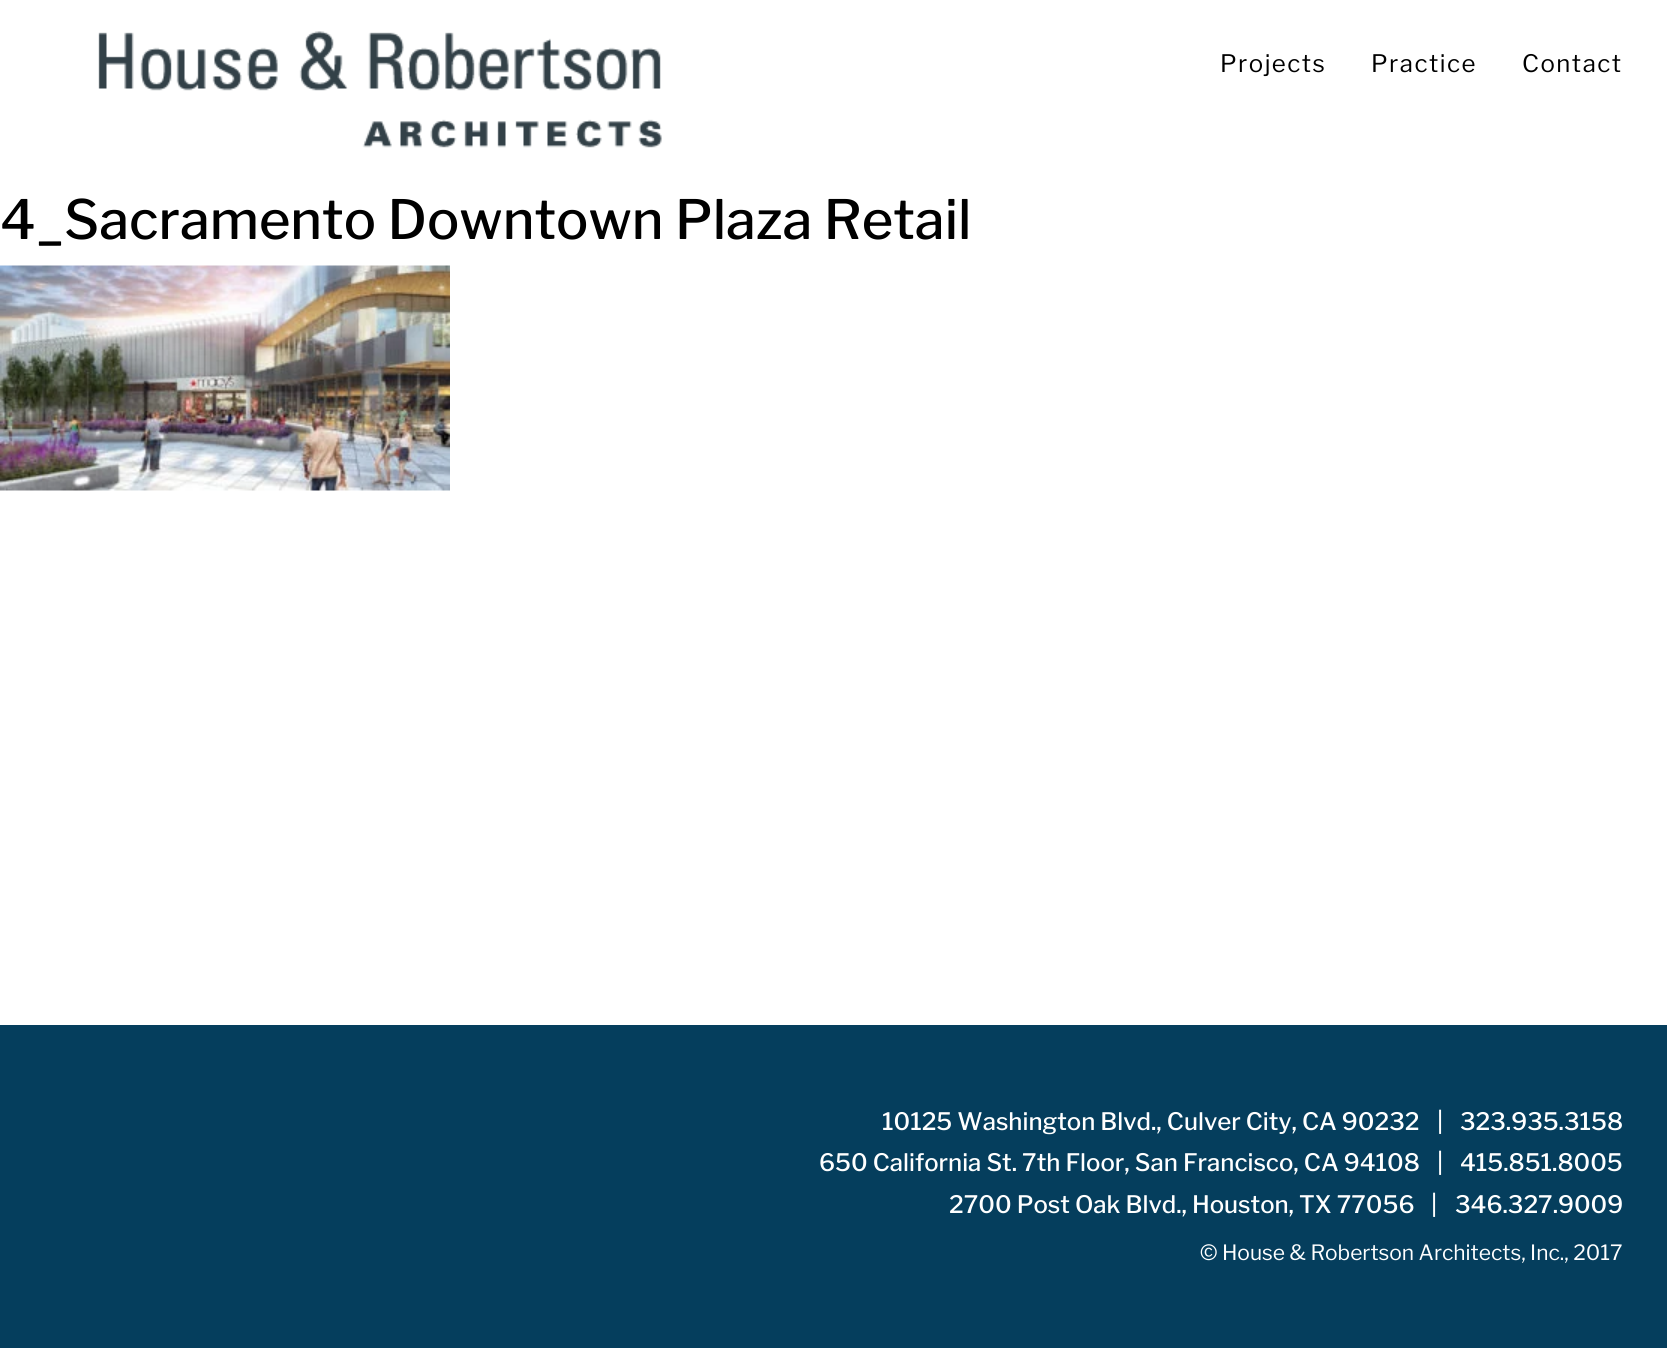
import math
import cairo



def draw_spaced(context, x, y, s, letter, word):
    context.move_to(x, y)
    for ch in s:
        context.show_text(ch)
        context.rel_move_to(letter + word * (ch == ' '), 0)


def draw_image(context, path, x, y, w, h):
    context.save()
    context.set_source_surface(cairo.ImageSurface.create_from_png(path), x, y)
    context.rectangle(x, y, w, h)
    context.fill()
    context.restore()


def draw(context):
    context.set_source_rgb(1, 1, 1)
    context.paint()
    draw_image(context, "images/1.png", 98, 31, 564, 117)
    draw_image(context, "images/2.png", 0, 265, 450, 226)
    context.set_source_rgb(5 / 255, 62 / 255, 93 / 255)
    context.rectangle(0, 1025, 1667, 323)
    context.fill()
    context.select_font_face("Libre Franklin")
    context.set_font_size(24)
    context.set_source_rgb(0, 0, 0)
    draw_spaced(context, 1220, 72, "Projects", 1.5, 0)
    draw_spaced(context, 1371, 72, "Practice", 1.5, 0)
    draw_spaced(context, 1522, 72, "Contact", 1.5, 0)
    context.select_font_face("Libre Franklin Medium")
    context.set_font_size(54)
    context.move_to(0, 239)
    context.show_text("4_Sacramento Downtown Plaza Retail")
    context.set_font_size(24)
    context.set_source_rgb(1, 1, 1)
    context.move_to(882, 1130)
    context.show_text("10125 Washington Blvd., Culver City, CA 90232")
    context.move_to(1437, 1130)
    context.show_text("|")
    context.move_to(1460, 1130)
    context.show_text("323.935.3158")
    context.move_to(819, 1171)
    context.show_text("650 California St. 7th Floor, San Francisco, CA 94108")
    context.move_to(1437, 1171)
    context.show_text("|")
    context.move_to(1460, 1171)
    context.show_text("415.851.8005")
    context.move_to(949, 1213)
    context.show_text("2700 Post Oak Blvd., Houston, TX 77056")
    context.move_to(1431, 1213)
    context.show_text("|")
    context.move_to(1455, 1213)
    context.show_text("346.327.9009")
    context.select_font_face("Libre Franklin")
    context.set_font_size(21)
    context.move_to(1200, 1260)
    context.show_text("© House & Robertson Architects, Inc., 2017")


surface = cairo.ImageSurface(cairo.Format.RGB24, 1667, 1348)
context = cairo.Context(surface)
options = cairo.FontOptions()
options.set_hint_metrics(cairo.HintMetrics.OFF)
options.set_hint_style(cairo.HintStyle.NONE)
context.set_font_options(options)
context.set_miter_limit(4)
draw(context)
surface.write_to_png("out.png")
